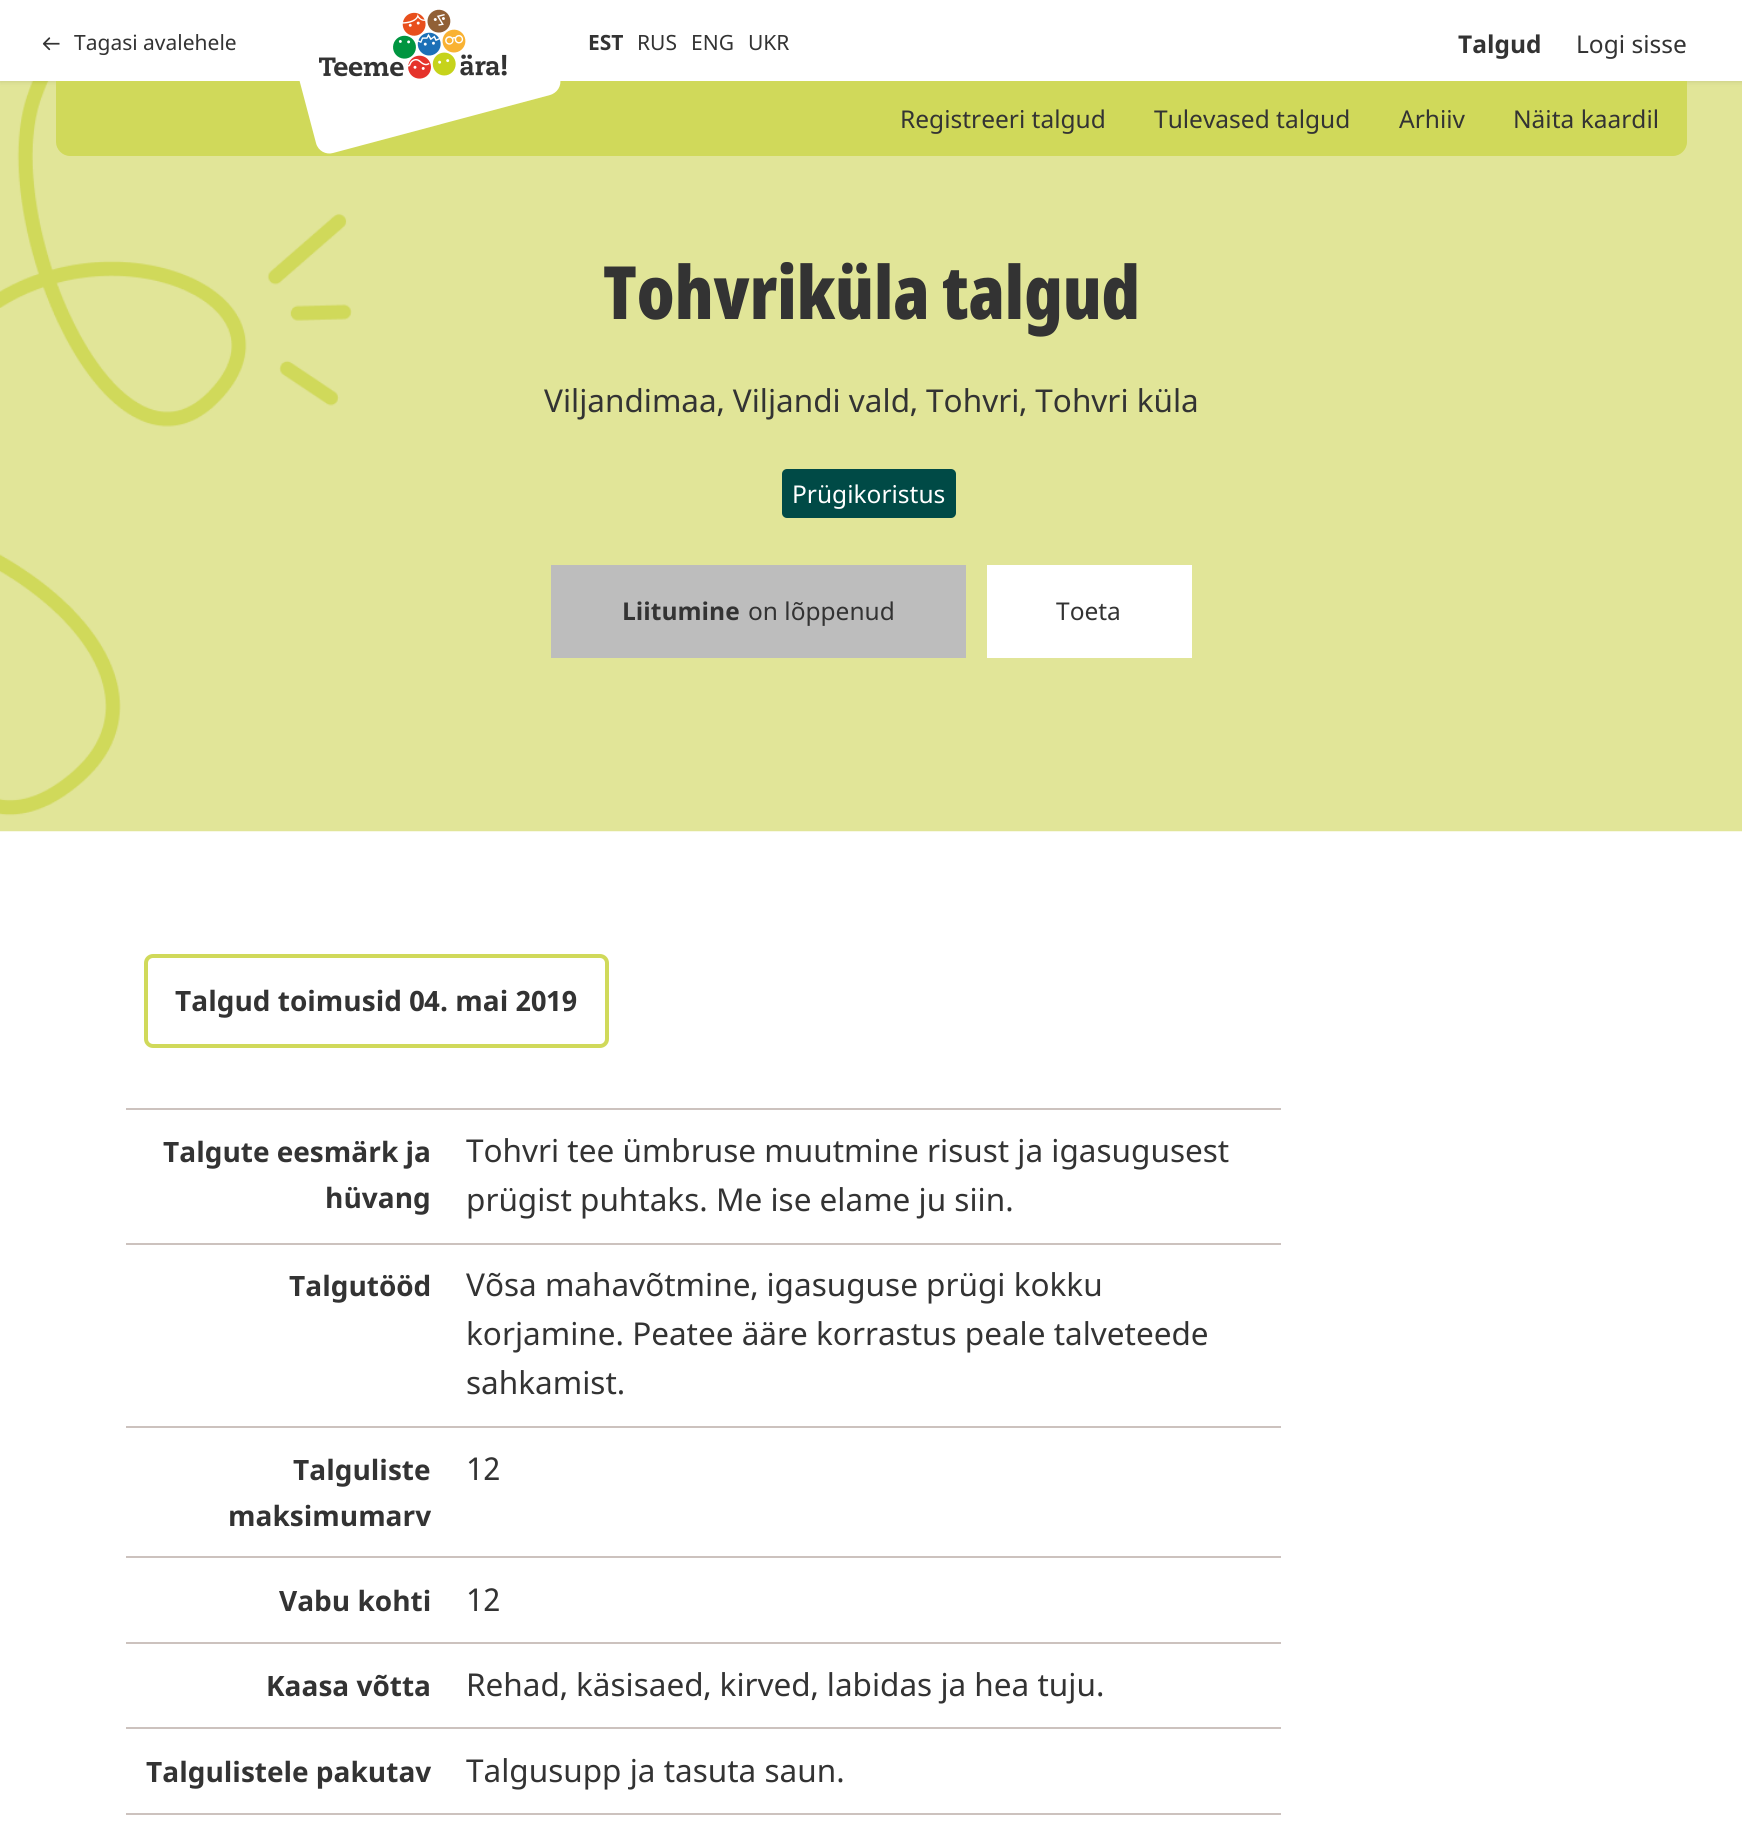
import math
import cairo



def rounded_rect(context, x, y, w, h, r):
    context.new_sub_path()
    for i, (u, v) in enumerate([(x + w - r, y + h - r), (x + r, y + h - r), (x + r, y + r), (x + w - r, y + r)]):
        context.arc(u, v, r, i * math.pi / 2, (i + 1) * math.pi / 2)
    context.close_path()


def draw_shadow(context, x, y, w, h, r, blur, alpha):
    context.push_group_with_content(cairo.Content.ALPHA)
    context.set_operator(cairo.Operator.SOURCE)
    for i in range(15, -16, -2):
        e = blur * i / 6
        if min(w, h) + 2 * e > 0:
            context.set_source_rgba(0, 0, 0, alpha * math.erfc((i - 1) / 8.5) / 2)
            rounded_rect(context, x - e, y - e, w + 2 * e, h + 2 * e, max(0, min(r + e + blur * .6, min(w, h) / 2 + e)))
            context.fill()
    context.mask(context.pop_group())


def draw_image(context, path, x, y, w, h):
    context.save()
    context.set_source_surface(cairo.ImageSurface.create_from_png(path), x, y)
    context.rectangle(x, y, w, h)
    context.fill()
    context.restore()


def draw(context):
    context.set_source_rgb(1, 1, 1)
    context.paint()
    draw_image(context, "images/3.png", 0, 81, 1742, 751)
    context.set_source_rgb(0, 0, 0)
    draw_shadow(context, 0, 2, 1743, 80, 0, 2.5, 0.1)
    context.set_source_rgb(1, 1, 1)
    context.rectangle(0, 0, 1742, 81)
    context.fill()
    draw_image(context, "images/1.png", 42, 37, 18, 14)
    context.set_source_rgb(208 / 255, 217 / 255, 90 / 255)
    context.new_path()
    context.move_to(56, 81)
    context.line_to(1687, 81)
    context.line_to(1687, 142)
    context.curve_to(1687, 149.5, 1680.5, 156, 1673, 156)
    context.line_to(70, 156)
    context.curve_to(62.5, 156, 56, 149.5, 56, 142)
    context.close_path()
    context.fill()
    context.set_source_rgb(1, 1, 1)
    context.new_path()
    context.move_to(294, 5)
    context.line_to(510, -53)
    context.curve_to(517, -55, 525, -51, 527, -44)
    context.line_to(560, 78)
    context.curve_to(562, 86, 557, 93, 550, 95)
    context.line_to(333, 153)
    context.curve_to(326, 155, 318, 151, 316, 143)
    context.line_to(284, 22)
    context.curve_to(282, 14, 286, 7, 294, 5)
    context.close_path()
    context.fill()
    draw_image(context, "images/2.png", 319, 9, 188, 70)
    context.set_source_rgb(0, 74 / 255, 70 / 255)
    rounded_rect(context, 782, 469, 174, 49, 5)
    context.fill()
    context.set_source_rgb(189 / 255, 189 / 255, 189 / 255)
    context.rectangle(551, 565, 415, 93)
    context.fill()
    context.set_source_rgb(1, 1, 1)
    context.rectangle(987, 565, 205, 93)
    context.fill()
    context.set_source_rgb(204 / 255, 194 / 255, 190 / 255)
    context.rectangle(126, 1108, 1155, 2)
    context.fill()
    rounded_rect(context, 146, 956, 461, 90, 7)
    context.set_source_rgb(208 / 255, 217 / 255, 90 / 255)
    context.set_line_width(4)
    context.stroke()
    context.set_source_rgb(204 / 255, 194 / 255, 190 / 255)
    context.rectangle(126, 1243, 1155, 2)
    context.fill()
    context.rectangle(126, 1426, 1155, 2)
    context.fill()
    context.rectangle(126, 1556, 1155, 2)
    context.fill()
    context.rectangle(126, 1642, 1155, 2)
    context.fill()
    context.rectangle(126, 1727, 1155, 2)
    context.fill()
    context.rectangle(126, 1813, 1155, 2)
    context.fill()
    context.select_font_face("Noto Sans")
    context.set_font_size(21)
    context.set_source_rgb(51 / 255, 51 / 255, 51 / 255)
    context.move_to(74, 50)
    context.show_text("Tagasi avalehele")
    context.select_font_face("Noto Sans", cairo.FontSlant.NORMAL, cairo.FontWeight.BOLD)
    context.move_to(588, 50)
    context.show_text("EST")
    context.select_font_face("Noto Sans")
    context.move_to(637, 50)
    context.show_text("RUS")
    context.move_to(691, 50)
    context.show_text("ENG")
    context.move_to(748, 50)
    context.show_text("UKR")
    context.select_font_face("Noto Sans", cairo.FontSlant.NORMAL, cairo.FontWeight.BOLD)
    context.set_font_size(24.5)
    context.move_to(1458, 53)
    context.show_text("Talgud")
    context.select_font_face("Noto Sans")
    context.move_to(1576, 53)
    context.show_text("Logi sisse")
    context.move_to(900, 128)
    context.show_text("Registreeri talgud")
    context.move_to(1154, 128)
    context.show_text("Tulevased talgud")
    context.move_to(1399, 128)
    context.show_text("Arhiiv")
    context.move_to(1513, 128)
    context.show_text("Näita kaardil")
    context.select_font_face("Noto Sans Black")
    context.set_font_size(73.5)
    context.move_to(603, 319)
    context.show_text("Tohvriküla talgud")
    context.select_font_face("Noto Sans")
    context.set_font_size(31.5)
    context.move_to(544, 412)
    context.show_text("Viljandimaa, Viljandi vald, Tohvri, Tohvri küla")
    context.set_font_size(24.5)
    context.set_source_rgb(1, 1, 1)
    context.move_to(792, 503)
    context.show_text("Prügikoristus")
    context.select_font_face("Noto Sans", cairo.FontSlant.NORMAL, cairo.FontWeight.BOLD)
    context.set_source_rgb(51 / 255, 51 / 255, 51 / 255)
    context.move_to(622, 620)
    context.show_text("Liitumine")
    context.select_font_face("Noto Sans")
    context.move_to(748, 620)
    context.show_text("on lõppenud")
    context.move_to(1056, 620)
    context.show_text("Toeta")
    context.select_font_face("Noto Sans", cairo.FontSlant.NORMAL, cairo.FontWeight.BOLD)
    context.set_font_size(28)
    context.move_to(175, 1011)
    context.show_text("Talgud toimusid 04. mai 2019")
    context.move_to(163, 1162)
    context.show_text("Talgute eesmärk ja")
    context.move_to(325, 1208)
    context.show_text("hüvang")
    context.select_font_face("Noto Sans")
    context.set_font_size(31.5)
    context.move_to(466, 1162)
    context.show_text("Tohvri tee ümbruse muutmine risust ja igasugusest")
    context.move_to(466, 1211)
    context.show_text("prügist puhtaks. Me ise elame ju siin.")
    context.select_font_face("Noto Sans", cairo.FontSlant.NORMAL, cairo.FontWeight.BOLD)
    context.set_font_size(28)
    context.move_to(289, 1296)
    context.show_text("Talgutööd")
    context.select_font_face("Noto Sans")
    context.set_font_size(31.5)
    context.move_to(466, 1296)
    context.show_text("Võsa mahavõtmine, igasuguse prügi kokku")
    context.move_to(466, 1345)
    context.show_text("korjamine. Peatee ääre korrastus peale talveteede")
    context.move_to(466, 1394)
    context.show_text("sahkamist.")
    context.select_font_face("Noto Sans", cairo.FontSlant.NORMAL, cairo.FontWeight.BOLD)
    context.set_font_size(28)
    context.move_to(293, 1480)
    context.show_text("Talguliste")
    context.move_to(228, 1526)
    context.show_text("maksimumarv")
    context.select_font_face("Noto Sans")
    context.set_font_size(31.5)
    context.move_to(466, 1480)
    context.show_text("12")
    context.select_font_face("Noto Sans", cairo.FontSlant.NORMAL, cairo.FontWeight.BOLD)
    context.set_font_size(28)
    context.move_to(279, 1611)
    context.show_text("Vabu kohti")
    context.select_font_face("Noto Sans")
    context.set_font_size(31.5)
    context.move_to(466, 1611)
    context.show_text("12")
    context.select_font_face("Noto Sans", cairo.FontSlant.NORMAL, cairo.FontWeight.BOLD)
    context.set_font_size(28)
    context.move_to(266, 1696)
    context.show_text("Kaasa võtta")
    context.select_font_face("Noto Sans")
    context.set_font_size(31.5)
    context.move_to(466, 1696)
    context.show_text("Rehad, käsisaed, kirved, labidas ja hea tuju.")
    context.select_font_face("Noto Sans", cairo.FontSlant.NORMAL, cairo.FontWeight.BOLD)
    context.set_font_size(28)
    context.move_to(146, 1782)
    context.show_text("Talgulistele pakutav")
    context.select_font_face("Noto Sans")
    context.set_font_size(31.5)
    context.move_to(466, 1782)
    context.show_text("Talgusupp ja tasuta saun.")


surface = cairo.ImageSurface(cairo.Format.RGB24, 1742, 1846)
context = cairo.Context(surface)
options = cairo.FontOptions()
options.set_hint_metrics(cairo.HintMetrics.OFF)
options.set_hint_style(cairo.HintStyle.NONE)
context.set_font_options(options)
context.set_miter_limit(4)
draw(context)
surface.write_to_png("out.png")
